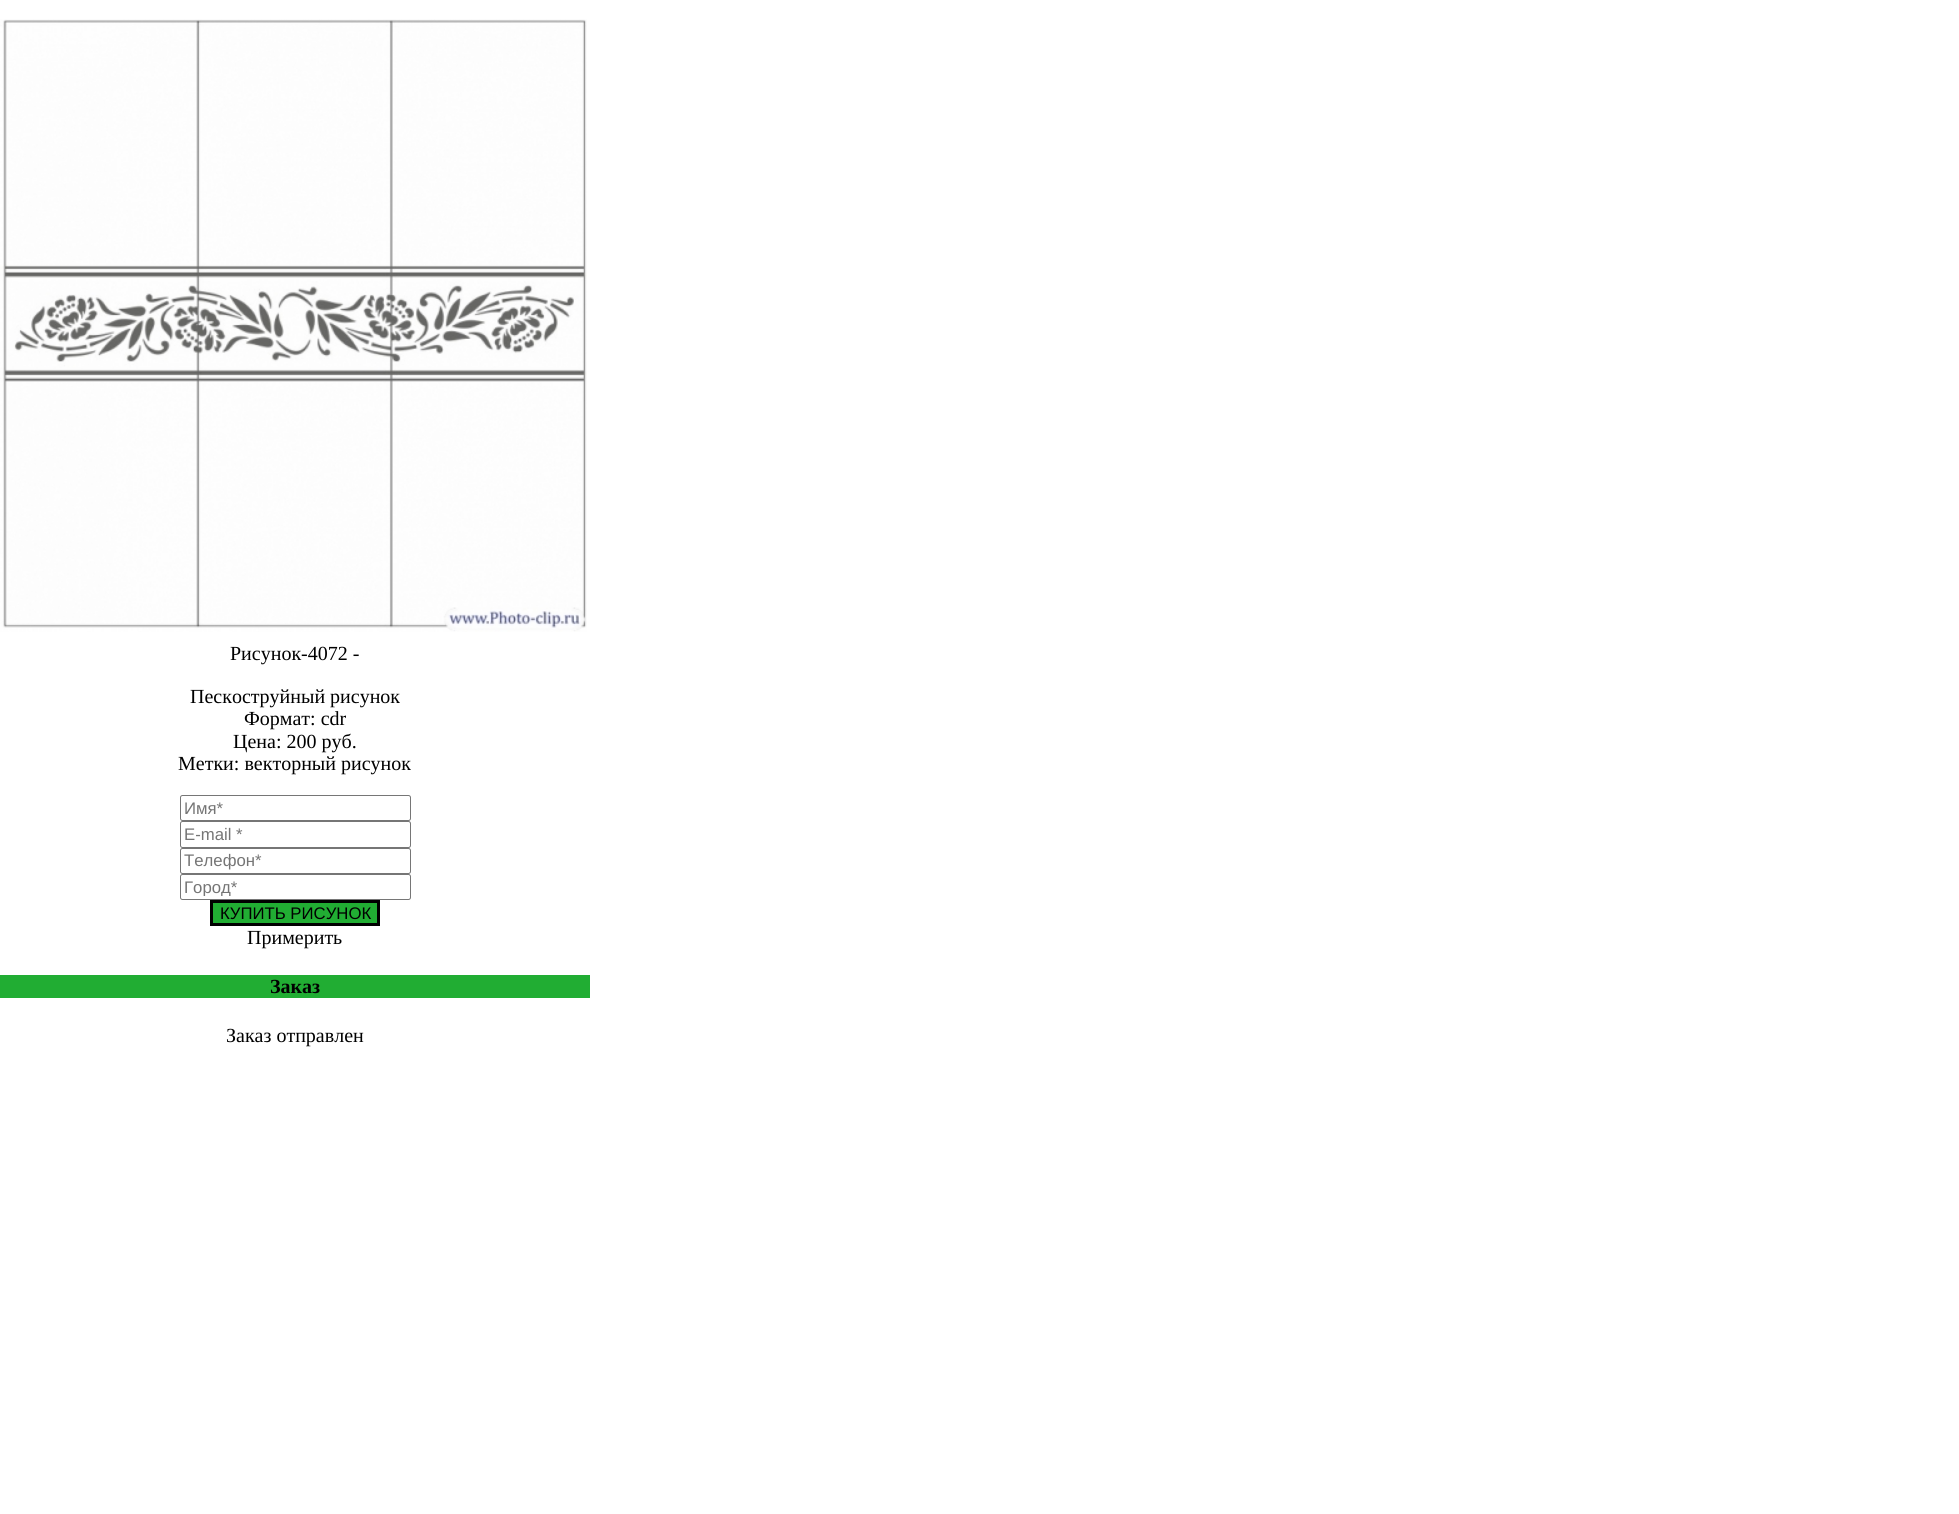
import math
import cairo



def rounded_rect(context, x, y, w, h, r):
    context.new_sub_path()
    for i, (u, v) in enumerate([(x + w - r, y + h - r), (x + r, y + h - r), (x + r, y + r), (x + w - r, y + r)]):
        context.arc(u, v, r, i * math.pi / 2, (i + 1) * math.pi / 2)
    context.close_path()


def draw_image(context, path, x, y, w, h):
    context.save()
    context.set_source_surface(cairo.ImageSurface.create_from_png(path), x, y)
    context.rectangle(x, y, w, h)
    context.fill()
    context.restore()


def draw(context):
    context.set_source_rgb(1, 1, 1)
    context.paint()
    draw_image(context, "images/1.png", 0, 19, 587, 613)
    rounded_rect(context, 180.5, 795.5, 230, 25, 2)
    context.set_source_rgb(118 / 255, 118 / 255, 118 / 255)
    context.set_line_width(1)
    context.stroke()
    rounded_rect(context, 180.5, 821.5, 230, 26, 2)
    context.stroke()
    rounded_rect(context, 180.5, 848.5, 230, 25, 2)
    context.stroke()
    rounded_rect(context, 180.5, 874.5, 230, 25, 2)
    context.stroke()
    context.set_source_rgb(33 / 255, 173 / 255, 51 / 255)
    context.rectangle(211.5, 901.5, 167, 23)
    context.fill_preserve()
    context.set_source_rgb(0, 0, 0)
    context.set_line_width(3)
    context.stroke()
    context.set_source_rgb(33 / 255, 173 / 255, 51 / 255)
    context.rectangle(0, 975, 590, 23)
    context.fill()
    context.select_font_face("Liberation Serif")
    context.set_font_size(20)
    context.set_source_rgb(0, 0, 0)
    context.move_to(230, 660)
    context.show_text("Рисунок-4072 -")
    context.move_to(190, 703)
    context.show_text("Пескоструйный рисунок")
    context.move_to(244, 725)
    context.show_text("Формат: cdr")
    context.move_to(233, 748)
    context.show_text("Цена: 200 руб.")
    context.move_to(178, 770)
    context.show_text("Метки: векторный рисунок")
    context.select_font_face("Liberation Sans")
    context.set_font_size(16.75)
    context.set_source_rgb(117 / 255, 117 / 255, 117 / 255)
    context.move_to(184, 814)
    context.show_text("Имя*")
    context.move_to(184, 840)
    context.show_text("E-mail *")
    context.move_to(184, 866)
    context.show_text("Телефон*")
    context.save()
    context.rectangle(185, 878, 221, 18)
    context.clip()
    context.move_to(184, 893)
    context.show_text("Город*")
    context.restore()
    context.set_source_rgb(0, 0, 0)
    context.move_to(220, 919)
    context.show_text("КУПИТЬ РИСУНОК")
    context.select_font_face("Liberation Serif")
    context.set_font_size(20)
    context.move_to(247, 944)
    context.show_text("Примерить")
    context.select_font_face("Liberation Serif", cairo.FontSlant.NORMAL, cairo.FontWeight.BOLD)
    context.move_to(270, 993)
    context.show_text("Заказ")
    context.select_font_face("Liberation Serif")
    context.move_to(226, 1042)
    context.show_text("Заказ отправлен")


surface = cairo.ImageSurface(cairo.Format.RGB24, 1959, 1514)
context = cairo.Context(surface)
options = cairo.FontOptions()
options.set_hint_metrics(cairo.HintMetrics.OFF)
options.set_hint_style(cairo.HintStyle.NONE)
context.set_font_options(options)
context.set_miter_limit(4)
draw(context)
surface.write_to_png("out.png")
